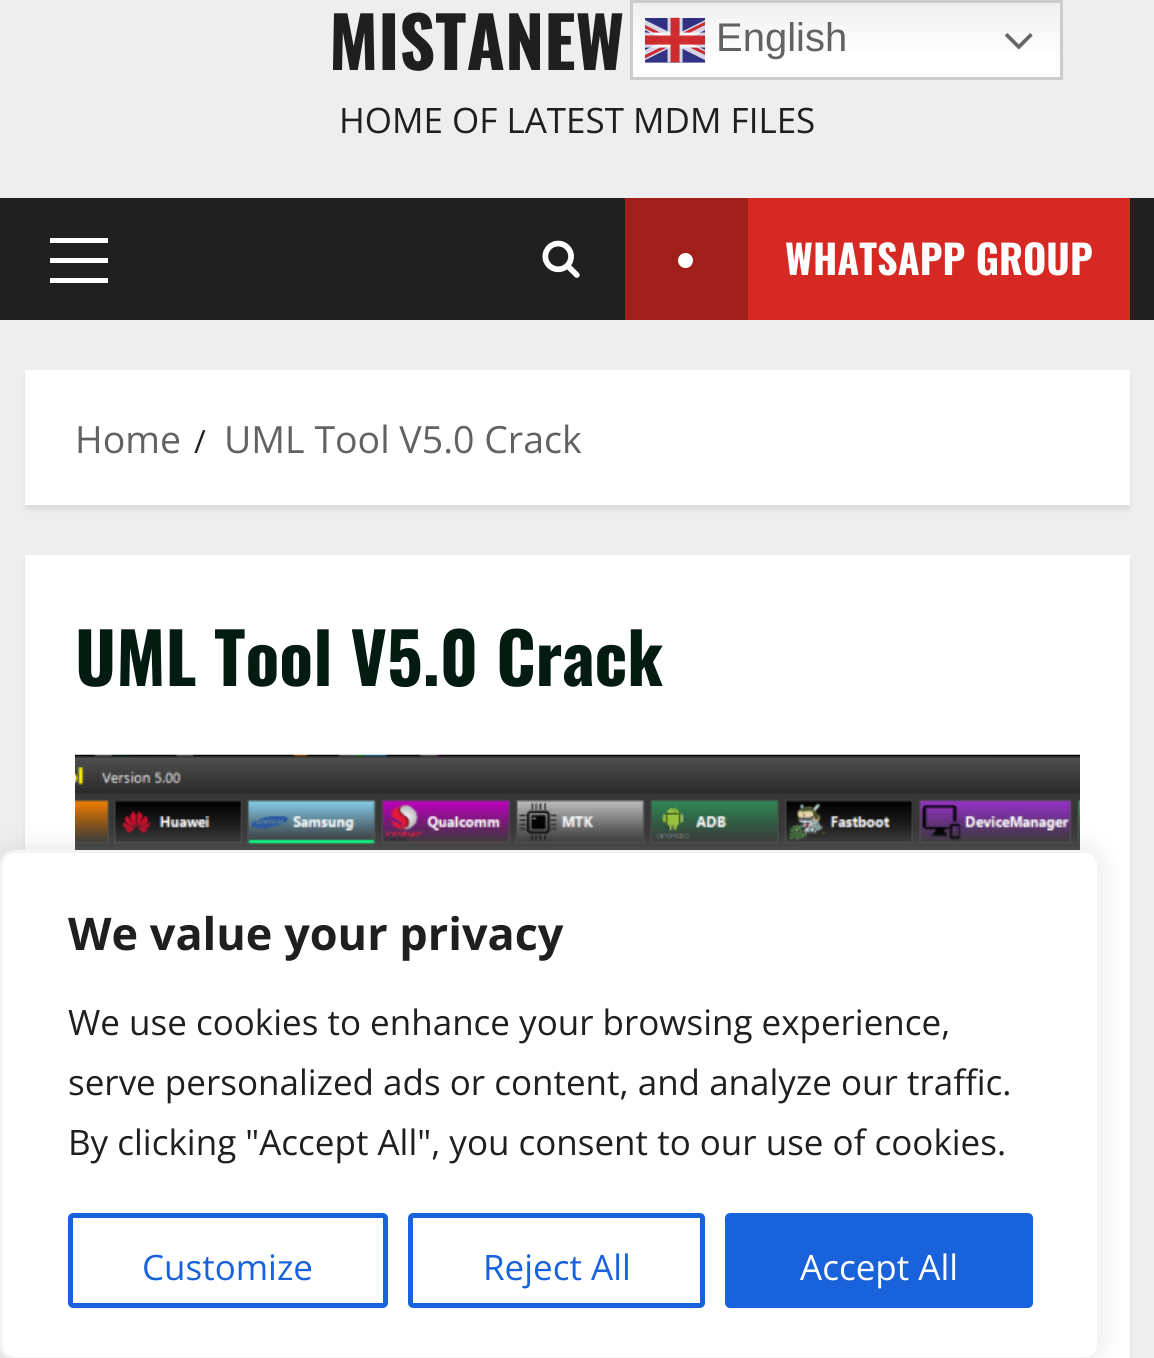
import math
import cairo



def rounded_rect(context, x, y, w, h, r):
    context.new_sub_path()
    for i, (u, v) in enumerate([(x + w - r, y + h - r), (x + r, y + h - r), (x + r, y + r), (x + w - r, y + r)]):
        context.arc(u, v, r, i * math.pi / 2, (i + 1) * math.pi / 2)
    context.close_path()


def draw_shadow(context, x, y, w, h, r, blur, alpha):
    context.push_group_with_content(cairo.Content.ALPHA)
    context.set_operator(cairo.Operator.SOURCE)
    for i in range(15, -16, -2):
        e = blur * i / 6
        if min(w, h) + 2 * e > 0:
            context.set_source_rgba(0, 0, 0, alpha * math.erfc((i - 1) / 8.5) / 2)
            rounded_rect(context, x - e, y - e, w + 2 * e, h + 2 * e, max(0, min(r + e + blur * .6, min(w, h) / 2 + e)))
            context.fill()
    context.mask(context.pop_group())


def draw_image(context, path, x, y, w, h):
    context.save()
    context.set_source_surface(cairo.ImageSurface.create_from_png(path), x, y)
    context.rectangle(x, y, w, h)
    context.fill()
    context.restore()


def draw(context):
    context.set_source_rgb(238 / 255, 238 / 255, 238 / 255)
    context.paint()
    context.set_source_rgb(32 / 255, 32 / 255, 32 / 255)
    context.rectangle(0, 198, 1154, 122)
    context.fill()
    context.set_source_rgb(1, 1, 1)
    context.rectangle(50, 258, 58, 5)
    context.fill()
    context.rectangle(50, 238, 58, 5)
    context.fill()
    context.rectangle(50, 278, 58, 5)
    context.fill()
    draw_image(context, "images/1.png", 542, 240, 38, 38)
    context.set_source_rgb(215 / 255, 41 / 255, 36 / 255)
    context.rectangle(748, 198, 382, 122)
    context.fill()
    context.set_source_rgb(161 / 255, 31 / 255, 27 / 255)
    context.rectangle(625, 198, 123, 122)
    context.fill()
    context.set_source_rgb(1, 1, 1)
    context.arc(685.5, 260.5, 7.5, 0, 2 * math.pi)
    context.fill()
    context.set_source_rgb(0, 0, 0)
    draw_shadow(context, 25, 375, 1105, 135, 0, 2.5, 0.08)
    context.set_source_rgb(1, 1, 1)
    context.rectangle(25, 370, 1105, 135)
    context.fill()
    context.set_source_rgb(0, 0, 0)
    draw_shadow(context, 25, 560, 1105, 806, 0, 2.5, 0.08)
    context.set_source_rgb(1, 1, 1)
    context.rectangle(25, 555, 1105, 803)
    context.fill()
    draw_image(context, "images/2.png", 75, 754, 1005, 96)
    gradient = cairo.LinearGradient(846, 0, 846, 80)
    gradient.add_color_stop_rgba(0, 239 / 255, 239 / 255, 239 / 255, 1)
    gradient.add_color_stop_rgba(0.7, 1, 1, 1, 1)
    context.set_source(gradient)
    context.rectangle(633, 5, 427, 72)
    context.fill()
    context.rectangle(631.5, 1.5, 430, 77)
    context.set_source_rgb(204 / 255, 204 / 255, 204 / 255)
    context.set_line_width(3)
    context.stroke()
    draw_image(context, "images/3.png", 645, 17, 60, 46)
    draw_image(context, "images/4.png", 1005, 33, 28, 17)
    context.set_source_rgb(172 / 255, 171 / 255, 171 / 255)
    draw_shadow(context, 0, 848, 1100, 510, 15, 12.5, 0.3)
    context.set_source_rgb(1, 1, 1)
    rounded_rect(context, 1.5, 851.5, 1097, 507, 13.5)
    context.fill_preserve()
    context.set_source_rgb(244 / 255, 244 / 255, 244 / 255)
    context.stroke()
    rounded_rect(context, 70.5, 1215.5, 315, 90, 2.5)
    context.set_source_rgb(24 / 255, 99 / 255, 220 / 255)
    context.set_line_width(5)
    context.stroke()
    rounded_rect(context, 410.5, 1215.5, 292, 90, 2.5)
    context.stroke()
    rounded_rect(context, 727.5, 1215.5, 303, 90, 2.5)
    context.fill_preserve()
    context.stroke()
    context.select_font_face("Oswald", cairo.FontSlant.NORMAL, cairo.FontWeight.BOLD)
    context.set_font_size(70)
    context.set_source_rgb(31 / 255, 31 / 255, 31 / 255)
    context.move_to(329, 70)
    context.show_text("MISTANEW")
    context.select_font_face("Open Sans")
    context.set_font_size(35)
    context.move_to(339, 133)
    context.show_text("HOME OF LATEST MDM FILES")
    context.select_font_face("Oswald", cairo.FontSlant.NORMAL, cairo.FontWeight.BOLD)
    context.set_font_size(40)
    context.set_source_rgb(1, 1, 1)
    context.move_to(785, 275)
    context.show_text("WHATSAPP GROUP")
    context.select_font_face("Open Sans")
    context.set_font_size(37.5)
    context.set_source_rgb(98 / 255, 98 / 255, 98 / 255)
    context.move_to(75, 453)
    context.show_text("Home")
    context.set_font_size(32)
    context.set_source_rgb(31 / 255, 31 / 255, 31 / 255)
    context.move_to(194, 453)
    context.show_text("/")
    context.set_font_size(37.5)
    context.set_source_rgb(98 / 255, 98 / 255, 98 / 255)
    context.move_to(224, 453)
    context.show_text("UML Tool V5.0 Crack")
    context.select_font_face("Oswald", cairo.FontSlant.NORMAL, cairo.FontWeight.BOLD)
    context.set_font_size(70)
    context.set_source_rgb(3 / 255, 27 / 255, 17 / 255)
    context.move_to(75, 686)
    context.show_text("UML Tool V5.0 Crack")
    context.select_font_face("Liberation Sans")
    context.set_font_size(40)
    context.set_source_rgb(98 / 255, 98 / 255, 98 / 255)
    context.move_to(716, 51)
    context.show_text("English")
    context.select_font_face("Open Sans", cairo.FontSlant.NORMAL, cairo.FontWeight.BOLD)
    context.set_font_size(45)
    context.set_source_rgb(31 / 255, 31 / 255, 31 / 255)
    context.move_to(68, 950)
    context.show_text("We value your privacy")
    context.select_font_face("Open Sans")
    context.set_font_size(35)
    context.move_to(68, 1035)
    context.show_text("We use cookies to enhance your browsing experience,")
    context.move_to(68, 1095)
    context.show_text("serve personalized ads or content, and analyze our traffic.")
    context.move_to(68, 1155)
    context.show_text("By clicking \"Accept All\", you consent to our use of cookies.")
    context.set_source_rgb(24 / 255, 99 / 255, 220 / 255)
    context.move_to(142, 1280)
    context.show_text("Customize")
    context.move_to(483, 1280)
    context.show_text("Reject All")
    context.set_source_rgb(1, 1, 1)
    context.move_to(800, 1280)
    context.show_text("Accept All")


surface = cairo.ImageSurface(cairo.Format.RGB24, 1154, 1358)
context = cairo.Context(surface)
options = cairo.FontOptions()
options.set_hint_metrics(cairo.HintMetrics.OFF)
options.set_hint_style(cairo.HintStyle.NONE)
context.set_font_options(options)
context.set_miter_limit(4)
draw(context)
surface.write_to_png("out.png")
